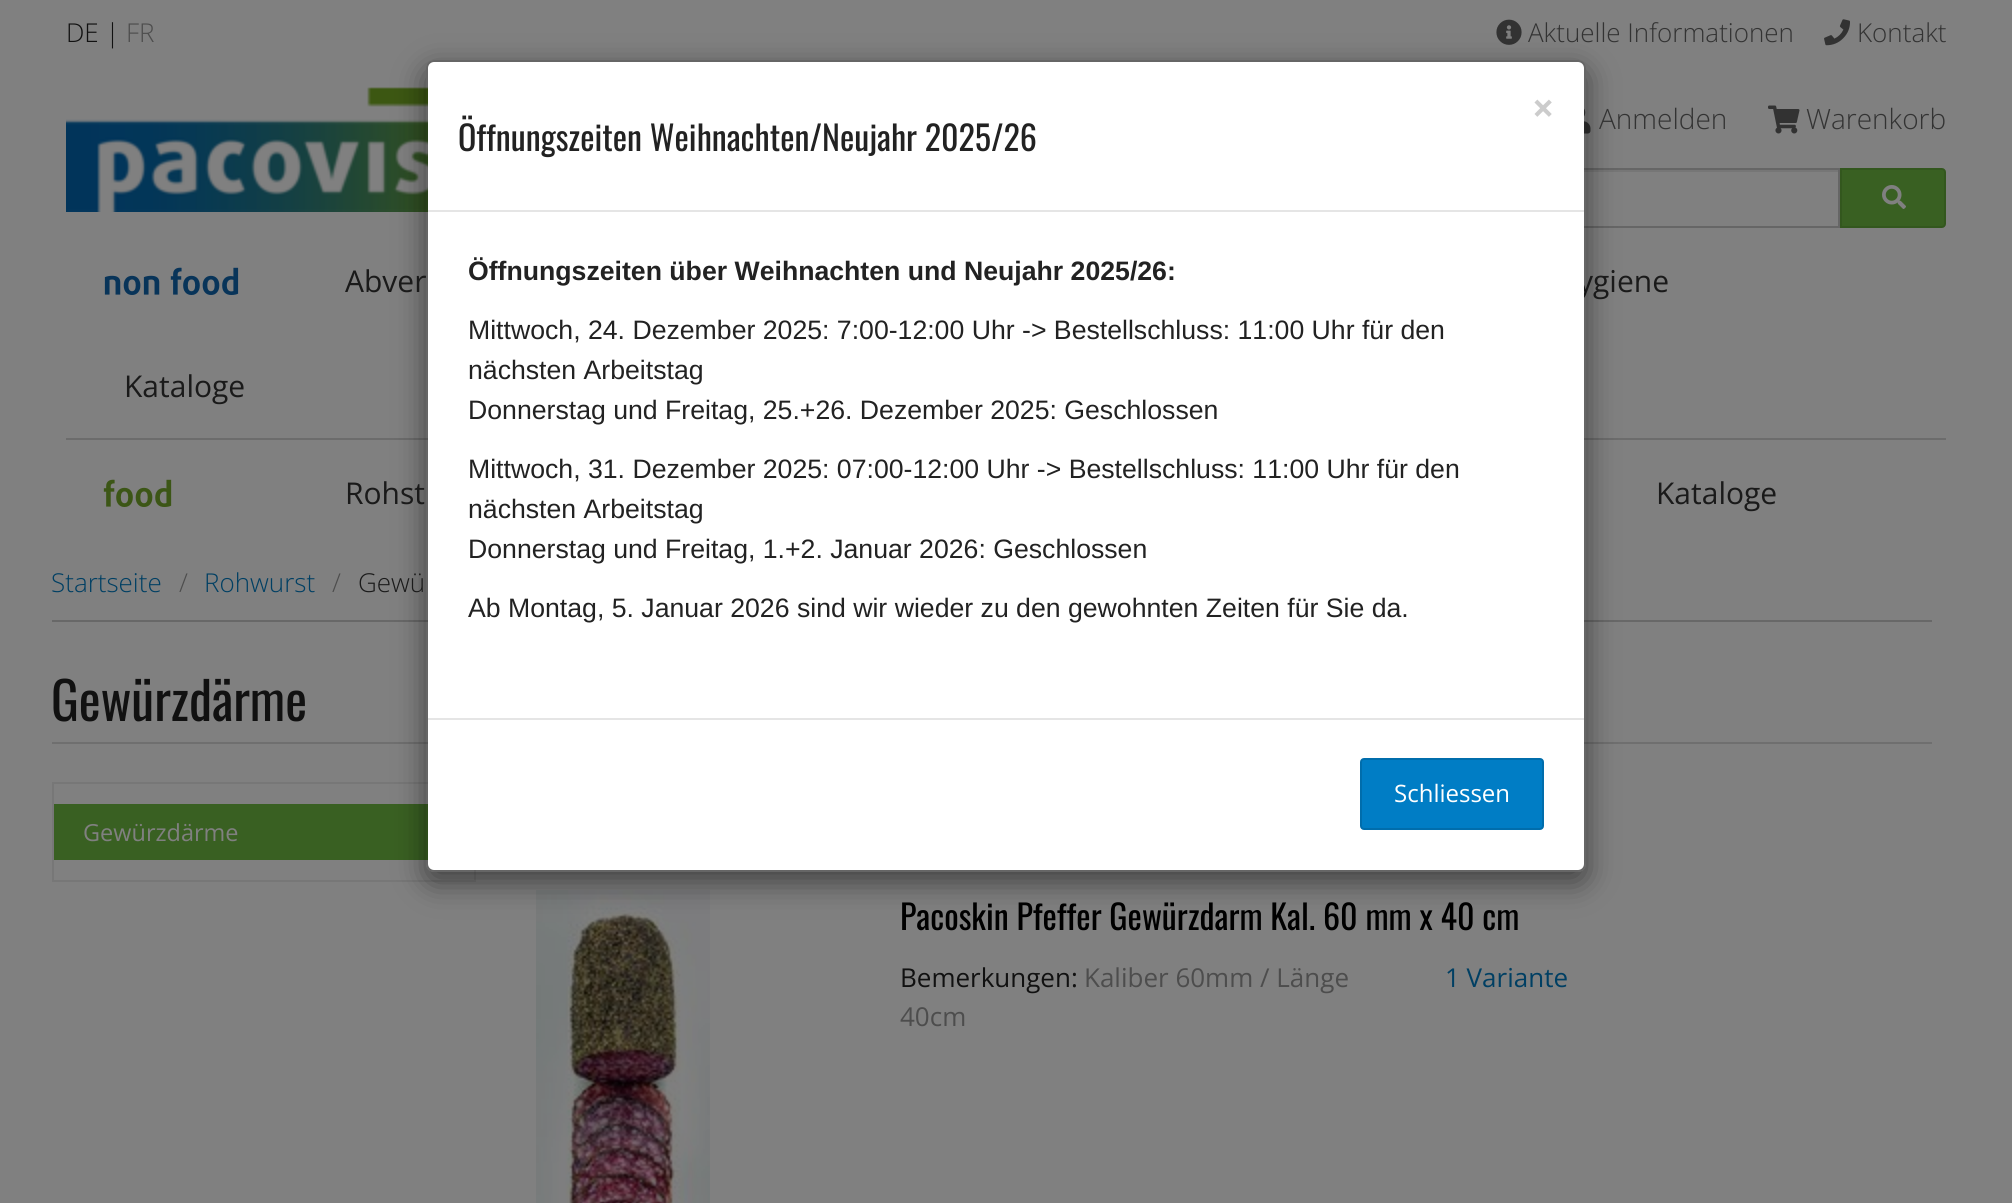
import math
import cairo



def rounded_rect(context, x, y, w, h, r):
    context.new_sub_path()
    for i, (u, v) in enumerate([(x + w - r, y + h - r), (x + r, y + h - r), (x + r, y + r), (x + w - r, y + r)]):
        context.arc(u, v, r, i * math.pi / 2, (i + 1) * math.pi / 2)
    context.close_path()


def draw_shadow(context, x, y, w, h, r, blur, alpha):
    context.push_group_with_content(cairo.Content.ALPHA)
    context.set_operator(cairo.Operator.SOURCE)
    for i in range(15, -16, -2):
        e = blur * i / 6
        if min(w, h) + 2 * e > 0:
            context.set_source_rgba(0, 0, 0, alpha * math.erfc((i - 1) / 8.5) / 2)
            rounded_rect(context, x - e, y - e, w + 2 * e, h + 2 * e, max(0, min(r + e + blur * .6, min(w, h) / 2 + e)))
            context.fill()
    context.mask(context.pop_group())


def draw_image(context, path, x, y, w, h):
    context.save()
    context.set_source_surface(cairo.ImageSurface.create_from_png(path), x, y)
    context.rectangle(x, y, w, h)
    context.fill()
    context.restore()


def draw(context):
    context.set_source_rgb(128 / 255, 128 / 255, 128 / 255)
    context.paint()
    draw_image(context, "images/1.png", 1496, 19, 26, 26)
    draw_image(context, "images/2.png", 1824, 19, 26, 27)
    draw_image(context, "images/3.png", 66, 87, 362, 125)
    draw_image(context, "images/4.png", 1584, 108, 7, 26)
    draw_image(context, "images/5.png", 1768, 105, 32, 29)
    context.set_source_rgb(118 / 255, 118 / 255, 118 / 255)
    context.new_path()
    context.move_to(1040, 172)
    context.line_to(1838, 172)
    context.line_to(1838, 170)
    context.line_to(1040, 170)
    context.curve_to(1038, 170, 1038, 172, 1038, 173)
    context.close_path()
    context.fill()
    context.rectangle(1037, 169, 802, 58)
    context.set_source_rgb(102 / 255, 102 / 255, 102 / 255)
    context.stroke()
    context.set_source_rgb(57 / 255, 96 / 255, 34 / 255)
    context.new_path()
    context.move_to(1841, 169)
    context.line_to(1942, 169)
    context.curve_to(1943.5, 169, 1945, 170.5, 1945, 172)
    context.line_to(1945, 224)
    context.curve_to(1945, 225.5, 1943.5, 227, 1942, 227)
    context.line_to(1841, 227)
    context.close_path()
    context.fill_preserve()
    context.set_source_rgb(51 / 255, 87 / 255, 30 / 255)
    context.stroke()
    draw_image(context, "images/6.png", 1882, 185, 24, 24)
    draw_image(context, "images/7.png", 104, 267, 135, 28)
    context.set_source_rgb(108 / 255, 108 / 255, 108 / 255)
    context.rectangle(66, 438, 1880, 2)
    context.fill()
    draw_image(context, "images/8.png", 103, 479, 69, 28)
    context.set_source_rgb(104 / 255, 104 / 255, 104 / 255)
    context.rectangle(52, 620, 1880, 2)
    context.fill()
    context.set_source_rgb(111 / 255, 111 / 255, 111 / 255)
    context.rectangle(52, 742, 1880, 2)
    context.fill()
    context.rectangle(53, 783, 422, 98)
    context.set_source_rgb(119 / 255, 119 / 255, 119 / 255)
    context.stroke()
    context.set_source_rgb(57 / 255, 96 / 255, 34 / 255)
    context.rectangle(54, 804, 374, 56)
    context.fill()
    draw_image(context, "images/9.png", 536, 890, 174, 313)
    context.save()
    context.set_fill_rule(cairo.FillRule.EVEN_ODD)
    context.new_path()
    context.move_to(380, 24)
    context.line_to(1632, 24)
    context.line_to(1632, 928)
    context.line_to(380, 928)
    context.close_path()
    context.move_to(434, 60)
    context.line_to(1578, 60)
    context.curve_to(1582.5, 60, 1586, 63.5, 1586, 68)
    context.line_to(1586, 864)
    context.curve_to(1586, 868.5, 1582.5, 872, 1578, 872)
    context.line_to(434, 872)
    context.curve_to(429.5, 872, 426, 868.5, 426, 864)
    context.line_to(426, 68)
    context.curve_to(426, 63.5, 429.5, 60, 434, 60)
    context.close_path()
    context.clip()
    context.set_source_rgb(0, 0, 0)
    draw_shadow(context, 426, 70, 1160, 812, 8, 15, 0.5)
    context.restore()
    context.select_font_face("Open Sans Light")
    context.set_font_size(26)
    context.set_source_rgb(17 / 255, 17 / 255, 17 / 255)
    context.move_to(66, 42)
    context.show_text("DE |")
    context.set_source_rgb(77 / 255, 77 / 255, 77 / 255)
    context.move_to(126, 42)
    context.show_text("FR")
    context.set_source_rgb(51 / 255, 51 / 255, 51 / 255)
    context.move_to(1528, 42)
    context.show_text("Aktuelle Informationen")
    context.move_to(1857, 42)
    context.show_text("Kontakt")
    context.set_font_size(28)
    context.move_to(1599, 129)
    context.show_text("Anmelden")
    context.move_to(1806, 129)
    context.show_text("Warenkorb")
    context.select_font_face("Open Sans")
    context.set_font_size(30)
    context.set_source_rgb(26 / 255, 26 / 255, 26 / 255)
    context.move_to(345, 292)
    context.show_text("Abver")
    context.move_to(1578, 292)
    context.show_text("ygiene")
    context.move_to(124, 397)
    context.show_text("Kataloge")
    context.move_to(345, 504)
    context.show_text("Rohst")
    context.move_to(1656, 504)
    context.show_text("Kataloge")
    context.select_font_face("Open Sans Light")
    context.set_font_size(26)
    context.set_source_rgb(0, 63 / 255, 99 / 255)
    context.move_to(51, 592)
    context.show_text("Startseite")
    context.set_source_rgb(77 / 255, 77 / 255, 77 / 255)
    context.move_to(179, 592)
    context.show_text("/")
    context.set_source_rgb(0, 63 / 255, 99 / 255)
    context.move_to(204, 592)
    context.show_text("Rohwurst")
    context.set_source_rgb(77 / 255, 77 / 255, 77 / 255)
    context.move_to(332, 592)
    context.show_text("/")
    context.set_source_rgb(26 / 255, 26 / 255, 26 / 255)
    context.move_to(358, 592)
    context.show_text("Gewü")
    context.select_font_face("Oswald")
    context.set_font_size(52)
    context.set_source_rgb(17 / 255, 17 / 255, 17 / 255)
    context.move_to(51, 721)
    context.show_text("Gewürzdärme")
    context.select_font_face("Open Sans")
    context.set_font_size(23.5)
    context.set_source_rgb(128 / 255, 128 / 255, 128 / 255)
    context.move_to(83, 841)
    context.show_text("Gewürzdärme")
    context.select_font_face("Oswald")
    context.set_font_size(34)
    context.set_source_rgb(0, 0, 0)
    context.move_to(900, 930)
    context.show_text("Pacoskin Pfeffer Gewürzdarm Kal. 60 mm x 40 cm")
    context.select_font_face("Open Sans")
    context.set_font_size(26)
    context.set_source_rgb(17 / 255, 17 / 255, 17 / 255)
    context.move_to(900, 987)
    context.show_text("Bemerkungen:")
    context.set_source_rgb(77 / 255, 77 / 255, 77 / 255)
    context.move_to(1084, 987)
    context.show_text("Kaliber 60mm / Länge")
    context.move_to(900, 1026)
    context.show_text("40cm")
    context.set_source_rgb(0, 63 / 255, 99 / 255)
    context.move_to(1445, 987)
    context.show_text("1 Variante")
    context.set_source_rgb(1, 1, 1)
    rounded_rect(context, 428, 62, 1156, 808, 6)
    context.fill()
    rounded_rect(context, 427, 61, 1158, 810, 7)
    context.set_source_rgba(0, 0, 0, 0.2)
    context.stroke()
    context.set_source_rgb(229 / 255, 229 / 255, 229 / 255)
    context.rectangle(428, 210, 1156, 2)
    context.fill()
    context.select_font_face("Open Sans", cairo.FontSlant.NORMAL, cairo.FontWeight.BOLD)
    context.set_font_size(39)
    context.set_source_rgb(204 / 255, 204 / 255, 204 / 255)
    context.move_to(1532, 122)
    context.show_text("×")
    context.select_font_face("Oswald")
    context.set_font_size(34)
    context.set_source_rgb(34 / 255, 34 / 255, 34 / 255)
    context.move_to(458, 151)
    context.show_text("Öffnungszeiten Weihnachten/Neujahr 2025/26")
    context.select_font_face("Liberation Sans", cairo.FontSlant.NORMAL, cairo.FontWeight.BOLD)
    context.set_font_size(26.65)
    context.move_to(468, 280)
    context.show_text("Öffnungszeiten über Weihnachten und Neujahr 2025/26:")
    context.select_font_face("Liberation Sans")
    context.move_to(468, 339)
    context.show_text("Mittwoch, 24. Dezember 2025: 7:00-12:00 Uhr -> Bestellschluss: 11:00 Uhr für den")
    context.move_to(468, 379)
    context.show_text("nächsten Arbeitstag")
    context.move_to(468, 419)
    context.show_text("Donnerstag und Freitag, 25.+26. Dezember 2025: Geschlossen")
    context.move_to(468, 478)
    context.show_text("Mittwoch, 31. Dezember 2025: 07:00-12:00 Uhr -> Bestellschluss: 11:00 Uhr für den")
    context.move_to(468, 518)
    context.show_text("nächsten Arbeitstag")
    context.move_to(468, 558)
    context.show_text("Donnerstag und Freitag, 1.+2. Januar 2026: Geschlossen")
    context.move_to(468, 617)
    context.show_text("Ab Montag, 5. Januar 2026 sind wir wieder zu den gewohnten Zeiten für Sie da.")
    context.set_source_rgb(229 / 255, 229 / 255, 229 / 255)
    context.rectangle(428, 718, 1156, 2)
    context.fill()
    context.set_source_rgb(0, 125 / 255, 197 / 255)
    rounded_rect(context, 1361, 759, 182, 70, 3)
    context.fill_preserve()
    context.set_source_rgb(0, 109 / 255, 172 / 255)
    context.stroke()
    context.select_font_face("Open Sans")
    context.set_font_size(24)
    context.set_source_rgb(1, 1, 1)
    context.move_to(1394, 802)
    context.show_text("Schliessen")


surface = cairo.ImageSurface(cairo.Format.RGB24, 2012, 1203)
context = cairo.Context(surface)
options = cairo.FontOptions()
options.set_hint_metrics(cairo.HintMetrics.OFF)
options.set_hint_style(cairo.HintStyle.NONE)
context.set_font_options(options)
context.set_miter_limit(4)
draw(context)
surface.write_to_png("out.png")
